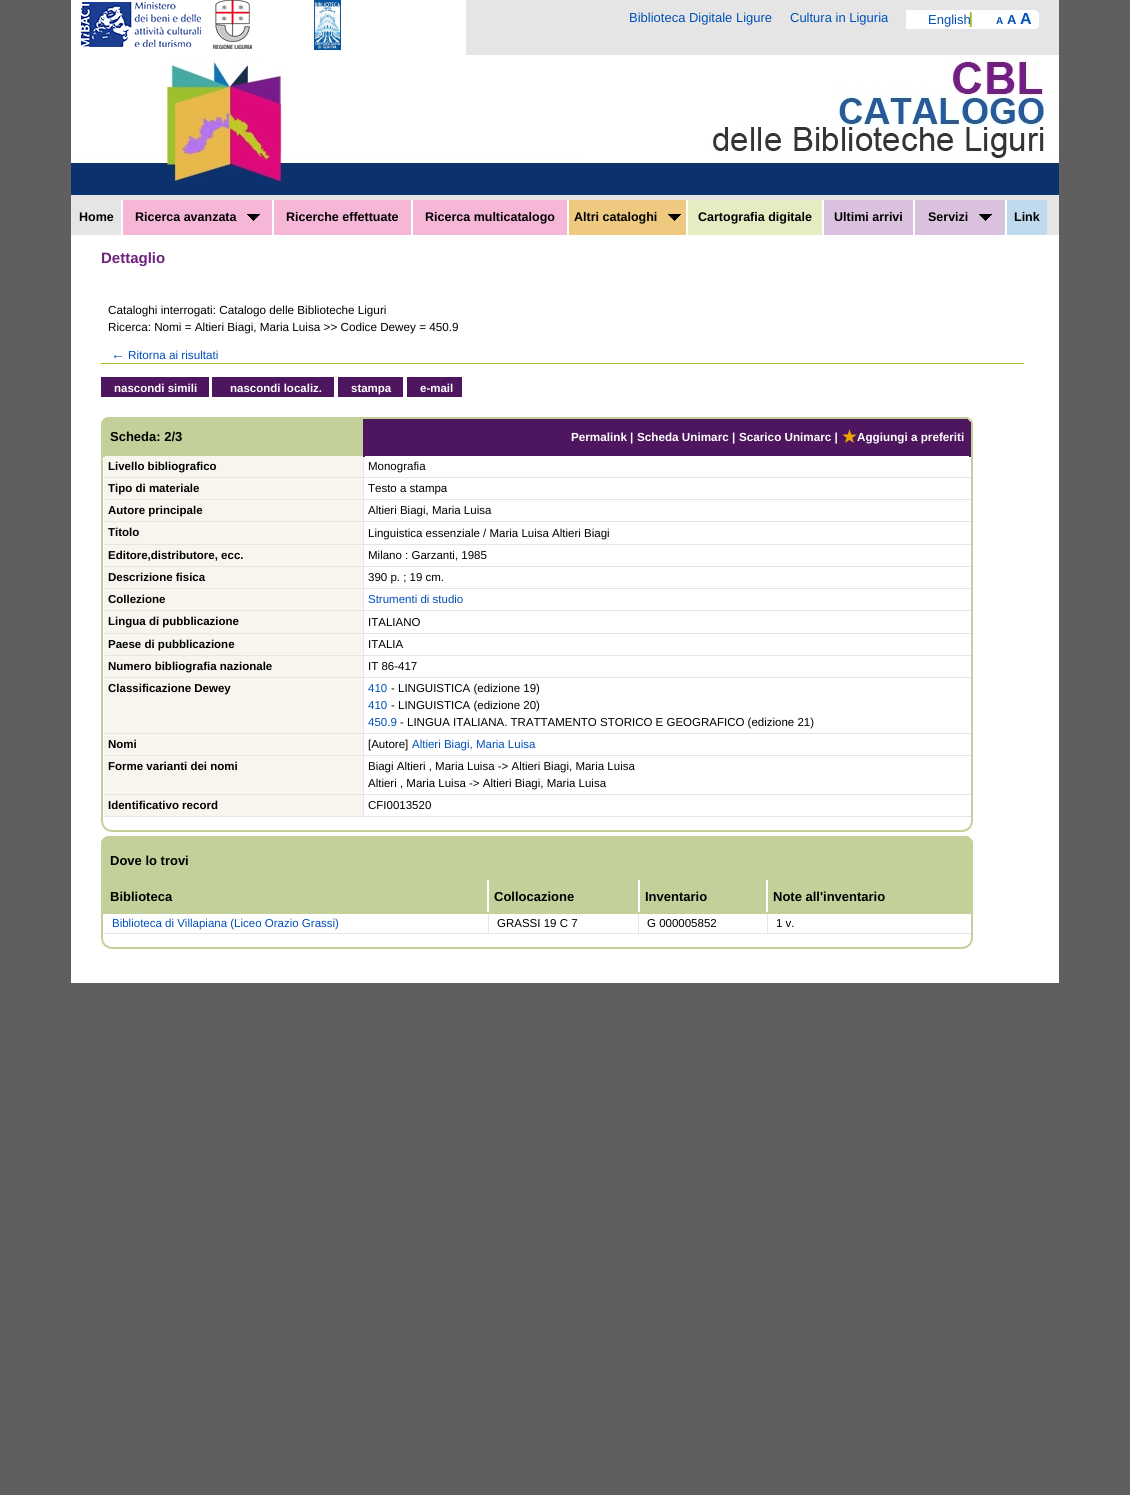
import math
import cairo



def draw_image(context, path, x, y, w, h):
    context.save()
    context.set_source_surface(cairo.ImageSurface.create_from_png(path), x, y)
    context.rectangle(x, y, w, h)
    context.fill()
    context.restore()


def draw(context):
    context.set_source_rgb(95 / 255, 95 / 255, 95 / 255)
    context.paint()
    context.set_source_rgb(1, 1, 1)
    context.rectangle(71, 235, 988, 748)
    context.fill()
    context.set_source_rgb(229 / 255, 229 / 255, 229 / 255)
    context.rectangle(71, 0, 988, 235)
    context.fill()
    context.set_source_rgb(1, 1, 1)
    context.rectangle(71, 0, 395, 55)
    context.fill()
    draw_image(context, "images/1.png", 81, 2, 120, 45)
    draw_image(context, "images/2.png", 213, 0, 39, 49)
    draw_image(context, "images/3.png", 314, 0, 27, 50)
    draw_image(context, "images/4.png", 906, 10, 133, 19)
    draw_image(context, "images/5.png", 71, 55, 988, 140)
    draw_image(context, "images/6.png", 166, 62, 116, 120)
    draw_image(context, "images/7.png", 579, 60, 480, 105)
    context.set_source_rgb(245 / 255, 182 / 255, 216 / 255)
    context.rectangle(123, 200, 149, 35)
    context.fill()
    context.set_source_rgb(1, 1, 1)
    context.rectangle(121, 200, 2, 35)
    context.fill()
    draw_image(context, "images/8.png", 247, 214, 13, 7)
    context.set_source_rgb(245 / 255, 182 / 255, 216 / 255)
    context.rectangle(274, 200, 137, 35)
    context.fill()
    context.set_source_rgb(1, 1, 1)
    context.rectangle(272, 200, 2, 35)
    context.fill()
    context.set_source_rgb(245 / 255, 182 / 255, 216 / 255)
    context.rectangle(413, 200, 154, 35)
    context.fill()
    context.set_source_rgb(1, 1, 1)
    context.rectangle(411, 200, 2, 35)
    context.fill()
    context.set_source_rgb(239 / 255, 201 / 255, 128 / 255)
    context.rectangle(569, 200, 117, 35)
    context.fill()
    context.set_source_rgb(1, 1, 1)
    context.rectangle(567, 200, 2, 35)
    context.fill()
    draw_image(context, "images/9.png", 668, 214, 13, 7)
    context.set_source_rgb(228 / 255, 236 / 255, 194 / 255)
    context.rectangle(688, 200, 134, 35)
    context.fill()
    context.set_source_rgb(1, 1, 1)
    context.rectangle(686, 200, 2, 35)
    context.fill()
    context.set_source_rgb(218 / 255, 194 / 255, 223 / 255)
    context.rectangle(824, 200, 89, 35)
    context.fill()
    context.set_source_rgb(1, 1, 1)
    context.rectangle(822, 200, 2, 35)
    context.fill()
    context.set_source_rgb(218 / 255, 194 / 255, 223 / 255)
    context.rectangle(915, 200, 90, 35)
    context.fill()
    context.set_source_rgb(1, 1, 1)
    context.rectangle(913, 200, 2, 35)
    context.fill()
    draw_image(context, "images/10.png", 979, 214, 13, 7)
    context.set_source_rgb(191 / 255, 218 / 255, 236 / 255)
    context.rectangle(1007, 200, 40, 35)
    context.fill()
    context.set_source_rgb(1, 1, 1)
    context.rectangle(1005, 200, 2, 35)
    context.fill()
    context.set_source_rgb(160 / 255, 191 / 255, 45 / 255)
    context.rectangle(101, 363, 923, 1)
    context.fill()
    context.set_source_rgb(78 / 255, 22 / 255, 95 / 255)
    context.rectangle(101, 377, 108, 20)
    context.fill()
    context.rectangle(212, 377, 122, 20)
    context.fill()
    context.rectangle(338, 377, 65, 20)
    context.fill()
    context.rectangle(407, 377, 55, 20)
    context.fill()
    context.set_source_rgb(196 / 255, 208 / 255, 153 / 255)
    context.rectangle(101, 417, 262, 10)
    context.fill()
    draw_image(context, "images/11.png", 101, 417, 6, 6)
    draw_image(context, "images/12.png", 363, 417, 604, 10)
    draw_image(context, "images/13.png", 967, 417, 6, 10)
    context.rectangle(971, 427, 2, 390)
    context.fill()
    context.rectangle(101, 427, 2, 390)
    context.fill()
    context.rectangle(105, 429, 258, 27)
    context.fill()
    context.set_source_rgb(78 / 255, 22 / 255, 95 / 255)
    context.rectangle(363, 427, 608, 2)
    context.fill()
    context.set_source_rgb(196 / 255, 208 / 255, 153 / 255)
    context.rectangle(103, 427, 262, 2)
    context.fill()
    context.set_source_rgb(229 / 255, 229 / 255, 229 / 255)
    context.rectangle(363, 816, 608, 1)
    context.fill()
    context.rectangle(363, 794, 1, 23)
    context.fill()
    context.rectangle(363, 794, 608, 1)
    context.fill()
    context.rectangle(363, 755, 1, 40)
    context.fill()
    context.rectangle(363, 755, 608, 1)
    context.fill()
    context.rectangle(363, 733, 1, 23)
    context.fill()
    context.rectangle(363, 733, 608, 1)
    context.fill()
    context.rectangle(363, 677, 1, 57)
    context.fill()
    context.rectangle(363, 677, 608, 1)
    context.fill()
    context.rectangle(363, 655, 1, 23)
    context.fill()
    context.rectangle(363, 655, 608, 1)
    context.fill()
    context.rectangle(363, 633, 1, 23)
    context.fill()
    context.rectangle(363, 633, 608, 1)
    context.fill()
    context.rectangle(363, 610, 1, 24)
    context.fill()
    context.rectangle(363, 610, 608, 1)
    context.fill()
    context.rectangle(363, 588, 1, 23)
    context.fill()
    context.rectangle(363, 588, 608, 1)
    context.fill()
    context.rectangle(363, 566, 1, 23)
    context.fill()
    context.rectangle(363, 566, 608, 1)
    context.fill()
    context.rectangle(363, 544, 1, 23)
    context.fill()
    context.rectangle(363, 544, 608, 1)
    context.fill()
    context.rectangle(363, 521, 1, 24)
    context.fill()
    context.rectangle(363, 521, 608, 1)
    context.fill()
    context.rectangle(363, 499, 1, 23)
    context.fill()
    context.rectangle(363, 499, 608, 1)
    context.fill()
    context.rectangle(363, 477, 1, 23)
    context.fill()
    context.rectangle(363, 477, 608, 1)
    context.fill()
    context.rectangle(363, 455, 1, 23)
    context.fill()
    context.set_source_rgb(78 / 255, 22 / 255, 95 / 255)
    context.rectangle(363, 427, 2, 30)
    context.fill()
    context.set_source_rgb(247 / 255, 245 / 255, 238 / 255)
    context.rectangle(104, 456, 259, 21)
    context.fill()
    context.set_source_rgb(196 / 255, 208 / 255, 153 / 255)
    context.rectangle(103, 427, 2, 30)
    context.fill()
    context.set_source_rgb(78 / 255, 22 / 255, 95 / 255)
    context.rectangle(365, 429, 604, 27)
    context.fill()
    context.rectangle(969, 427, 2, 30)
    context.fill()
    draw_image(context, "images/14.png", 842, 429, 15, 14)
    context.set_source_rgb(229 / 255, 229 / 255, 229 / 255)
    context.rectangle(104, 477, 260, 1)
    context.fill()
    context.set_source_rgb(247 / 255, 245 / 255, 238 / 255)
    context.rectangle(104, 478, 259, 21)
    context.fill()
    context.set_source_rgb(229 / 255, 229 / 255, 229 / 255)
    context.rectangle(104, 499, 260, 1)
    context.fill()
    context.set_source_rgb(247 / 255, 245 / 255, 238 / 255)
    context.rectangle(104, 500, 259, 21)
    context.fill()
    context.set_source_rgb(229 / 255, 229 / 255, 229 / 255)
    context.rectangle(104, 521, 260, 1)
    context.fill()
    context.set_source_rgb(247 / 255, 245 / 255, 238 / 255)
    context.rectangle(104, 522, 259, 22)
    context.fill()
    context.set_source_rgb(229 / 255, 229 / 255, 229 / 255)
    context.rectangle(104, 544, 260, 1)
    context.fill()
    context.set_source_rgb(247 / 255, 245 / 255, 238 / 255)
    context.rectangle(104, 545, 259, 21)
    context.fill()
    context.set_source_rgb(229 / 255, 229 / 255, 229 / 255)
    context.rectangle(104, 566, 260, 1)
    context.fill()
    context.set_source_rgb(247 / 255, 245 / 255, 238 / 255)
    context.rectangle(104, 567, 259, 21)
    context.fill()
    context.set_source_rgb(229 / 255, 229 / 255, 229 / 255)
    context.rectangle(104, 588, 260, 1)
    context.fill()
    context.set_source_rgb(247 / 255, 245 / 255, 238 / 255)
    context.rectangle(104, 589, 259, 21)
    context.fill()
    context.set_source_rgb(229 / 255, 229 / 255, 229 / 255)
    context.rectangle(104, 610, 260, 1)
    context.fill()
    context.set_source_rgb(247 / 255, 245 / 255, 238 / 255)
    context.rectangle(104, 611, 259, 22)
    context.fill()
    context.set_source_rgb(229 / 255, 229 / 255, 229 / 255)
    context.rectangle(104, 633, 260, 1)
    context.fill()
    context.set_source_rgb(247 / 255, 245 / 255, 238 / 255)
    context.rectangle(104, 634, 259, 21)
    context.fill()
    context.set_source_rgb(229 / 255, 229 / 255, 229 / 255)
    context.rectangle(104, 655, 260, 1)
    context.fill()
    context.set_source_rgb(247 / 255, 245 / 255, 238 / 255)
    context.rectangle(104, 656, 259, 21)
    context.fill()
    context.set_source_rgb(229 / 255, 229 / 255, 229 / 255)
    context.rectangle(104, 677, 260, 1)
    context.fill()
    context.set_source_rgb(247 / 255, 245 / 255, 238 / 255)
    context.rectangle(104, 678, 259, 55)
    context.fill()
    context.set_source_rgb(229 / 255, 229 / 255, 229 / 255)
    context.rectangle(104, 733, 260, 1)
    context.fill()
    context.set_source_rgb(247 / 255, 245 / 255, 238 / 255)
    context.rectangle(104, 734, 259, 21)
    context.fill()
    context.set_source_rgb(229 / 255, 229 / 255, 229 / 255)
    context.rectangle(104, 755, 260, 1)
    context.fill()
    context.set_source_rgb(247 / 255, 245 / 255, 238 / 255)
    context.rectangle(104, 756, 259, 38)
    context.fill()
    context.set_source_rgb(229 / 255, 229 / 255, 229 / 255)
    context.rectangle(104, 794, 260, 1)
    context.fill()
    context.set_source_rgb(247 / 255, 245 / 255, 238 / 255)
    context.rectangle(104, 795, 259, 21)
    context.fill()
    context.set_source_rgb(229 / 255, 229 / 255, 229 / 255)
    context.rectangle(104, 816, 260, 1)
    context.fill()
    context.set_source_rgb(196 / 255, 208 / 255, 153 / 255)
    context.rectangle(111, 830, 852, 2)
    context.fill()
    draw_image(context, "images/15.png", 963, 817, 10, 15)
    draw_image(context, "images/16.png", 101, 817, 10, 15)
    context.rectangle(101, 836, 872, 15)
    context.fill()
    draw_image(context, "images/17.png", 967, 836, 6, 6)
    draw_image(context, "images/11.png", 101, 836, 6, 6)
    context.rectangle(971, 851, 2, 83)
    context.fill()
    context.rectangle(101, 851, 2, 83)
    context.fill()
    context.rectangle(103, 851, 868, 29)
    context.fill()
    context.rectangle(105, 882, 382, 30)
    context.fill()
    context.rectangle(103, 880, 868, 2)
    context.fill()
    context.rectangle(969, 880, 2, 34)
    context.fill()
    context.set_source_rgb(229 / 255, 229 / 255, 229 / 255)
    context.rectangle(767, 933, 204, 1)
    context.fill()
    context.rectangle(767, 912, 1, 22)
    context.fill()
    context.set_source_rgb(196 / 255, 208 / 255, 153 / 255)
    context.rectangle(766, 912, 205, 2)
    context.fill()
    context.set_source_rgb(1, 1, 1)
    context.rectangle(766, 880, 2, 34)
    context.fill()
    context.set_source_rgb(229 / 255, 229 / 255, 229 / 255)
    context.rectangle(638, 933, 130, 1)
    context.fill()
    context.rectangle(638, 912, 1, 22)
    context.fill()
    context.set_source_rgb(196 / 255, 208 / 255, 153 / 255)
    context.rectangle(638, 912, 130, 2)
    context.fill()
    context.set_source_rgb(1, 1, 1)
    context.rectangle(638, 880, 2, 34)
    context.fill()
    context.set_source_rgb(229 / 255, 229 / 255, 229 / 255)
    context.rectangle(488, 933, 151, 1)
    context.fill()
    context.rectangle(488, 912, 1, 22)
    context.fill()
    context.set_source_rgb(196 / 255, 208 / 255, 153 / 255)
    context.rectangle(487, 912, 153, 2)
    context.fill()
    context.set_source_rgb(1, 1, 1)
    context.rectangle(487, 880, 2, 34)
    context.fill()
    context.set_source_rgb(196 / 255, 208 / 255, 153 / 255)
    context.rectangle(103, 912, 386, 2)
    context.fill()
    context.rectangle(103, 880, 2, 34)
    context.fill()
    context.rectangle(489, 882, 149, 30)
    context.fill()
    context.rectangle(640, 882, 126, 30)
    context.fill()
    context.rectangle(768, 882, 201, 30)
    context.fill()
    context.set_source_rgb(229 / 255, 229 / 255, 229 / 255)
    context.rectangle(104, 933, 385, 1)
    context.fill()
    context.set_source_rgb(196 / 255, 208 / 255, 153 / 255)
    context.rectangle(111, 947, 852, 2)
    context.fill()
    draw_image(context, "images/15.png", 963, 934, 10, 15)
    draw_image(context, "images/16.png", 101, 934, 10, 15)
    context.select_font_face("Liberation Sans")
    context.set_font_size(13)
    context.set_source_rgb(0, 80 / 255, 185 / 255)
    context.move_to(629, 22)
    context.show_text("Biblioteca Digitale Ligure")
    context.move_to(790, 22)
    context.show_text("Cultura in Liguria")
    context.move_to(928, 24)
    context.show_text("English")
    context.select_font_face("Liberation Sans", cairo.FontSlant.NORMAL, cairo.FontWeight.BOLD)
    context.set_font_size(10)
    context.move_to(996, 24)
    context.show_text("A")
    context.set_font_size(13)
    context.move_to(1007, 24)
    context.show_text("A")
    context.set_font_size(16)
    context.move_to(1020, 24)
    context.show_text("A")
    context.set_font_size(12.5)
    context.set_source_rgb(0, 0, 0)
    context.move_to(79, 221)
    context.show_text("Home")
    context.move_to(135, 221)
    context.show_text("Ricerca avanzata")
    context.move_to(286, 221)
    context.show_text("Ricerche effettuate")
    context.move_to(425, 221)
    context.show_text("Ricerca multicatalogo")
    context.move_to(574, 221)
    context.show_text("Altri cataloghi")
    context.move_to(698, 221)
    context.show_text("Cartografia digitale")
    context.move_to(834, 221)
    context.show_text("Ultimi arrivi")
    context.move_to(928, 221)
    context.show_text("Servizi")
    context.move_to(1014, 221)
    context.show_text("Link")
    context.set_font_size(15)
    context.set_source_rgb(110 / 255, 33 / 255, 125 / 255)
    context.move_to(101, 263)
    context.show_text("Dettaglio")
    context.select_font_face("Liberation Sans")
    context.set_font_size(11.7)
    context.set_source_rgb(0, 0, 0)
    context.move_to(108, 314)
    context.show_text("Cataloghi interrogati: Catalogo delle Biblioteche Liguri")
    context.move_to(108, 331)
    context.show_text("Ricerca: Nomi = Altieri Biagi, Maria Luisa >> Codice Dewey = 450.9")
    context.set_font_size(14)
    context.set_source_rgb(0, 80 / 255, 185 / 255)
    context.move_to(111, 359)
    context.show_text("←")
    context.set_font_size(11.7)
    context.move_to(128, 359)
    context.show_text("Ritorna ai risultati")
    context.select_font_face("Liberation Sans", cairo.FontSlant.NORMAL, cairo.FontWeight.BOLD)
    context.set_font_size(11.5)
    context.set_source_rgb(1, 1, 1)
    context.move_to(114, 392)
    context.show_text("nascondi simili")
    context.move_to(230, 392)
    context.show_text("nascondi localiz.")
    context.move_to(351, 392)
    context.show_text("stampa")
    context.move_to(420, 392)
    context.show_text("e-mail")
    context.set_font_size(13)
    context.set_source_rgb(0, 0, 0)
    context.move_to(110, 441)
    context.show_text("Scheda: 2/3")
    context.set_font_size(11.7)
    context.set_source_rgb(1, 1, 1)
    context.move_to(571, 441)
    context.show_text("Permalink")
    context.move_to(630, 441)
    context.show_text("|")
    context.move_to(637, 441)
    context.show_text("Scheda Unimarc |")
    context.move_to(739, 441)
    context.show_text("Scarico Unimarc |")
    context.move_to(857, 441)
    context.show_text("Aggiungi a preferiti")
    context.set_font_size(11.5)
    context.set_source_rgb(0, 0, 0)
    context.move_to(108, 470)
    context.show_text("Livello bibliografico")
    context.select_font_face("Liberation Sans")
    context.move_to(368, 470)
    context.show_text("Monografia")
    context.select_font_face("Liberation Sans", cairo.FontSlant.NORMAL, cairo.FontWeight.BOLD)
    context.move_to(108, 492)
    context.show_text("Tipo di materiale")
    context.select_font_face("Liberation Sans")
    context.move_to(368, 492)
    context.show_text("Testo a stampa")
    context.select_font_face("Liberation Sans", cairo.FontSlant.NORMAL, cairo.FontWeight.BOLD)
    context.move_to(108, 514)
    context.show_text("Autore principale")
    context.select_font_face("Liberation Sans")
    context.move_to(368, 514)
    context.show_text("Altieri Biagi, Maria Luisa")
    context.select_font_face("Liberation Sans", cairo.FontSlant.NORMAL, cairo.FontWeight.BOLD)
    context.move_to(108, 536)
    context.show_text("Titolo")
    context.select_font_face("Liberation Sans")
    context.move_to(368, 537)
    context.show_text("Linguistica essenziale / Maria Luisa Altieri Biagi")
    context.select_font_face("Liberation Sans", cairo.FontSlant.NORMAL, cairo.FontWeight.BOLD)
    context.move_to(108, 559)
    context.show_text("Editore,distributore, ecc.")
    context.select_font_face("Liberation Sans")
    context.move_to(368, 559)
    context.show_text("Milano : Garzanti, 1985")
    context.select_font_face("Liberation Sans", cairo.FontSlant.NORMAL, cairo.FontWeight.BOLD)
    context.move_to(108, 581)
    context.show_text("Descrizione fisica")
    context.select_font_face("Liberation Sans")
    context.move_to(368, 581)
    context.show_text("390 p. ; 19 cm.")
    context.select_font_face("Liberation Sans", cairo.FontSlant.NORMAL, cairo.FontWeight.BOLD)
    context.move_to(108, 603)
    context.show_text("Collezione")
    context.select_font_face("Liberation Sans")
    context.set_source_rgb(0, 80 / 255, 185 / 255)
    context.move_to(368, 603)
    context.show_text("Strumenti di studio")
    context.select_font_face("Liberation Sans", cairo.FontSlant.NORMAL, cairo.FontWeight.BOLD)
    context.set_source_rgb(0, 0, 0)
    context.move_to(108, 625)
    context.show_text("Lingua di pubblicazione")
    context.select_font_face("Liberation Sans")
    context.move_to(368, 626)
    context.show_text("ITALIANO")
    context.select_font_face("Liberation Sans", cairo.FontSlant.NORMAL, cairo.FontWeight.BOLD)
    context.move_to(108, 648)
    context.show_text("Paese di pubblicazione")
    context.select_font_face("Liberation Sans")
    context.move_to(368, 648)
    context.show_text("ITALIA")
    context.select_font_face("Liberation Sans", cairo.FontSlant.NORMAL, cairo.FontWeight.BOLD)
    context.move_to(108, 670)
    context.show_text("Numero bibliografia nazionale")
    context.select_font_face("Liberation Sans")
    context.move_to(368, 670)
    context.show_text("IT 86-417")
    context.select_font_face("Liberation Sans", cairo.FontSlant.NORMAL, cairo.FontWeight.BOLD)
    context.move_to(108, 692)
    context.show_text("Classificazione Dewey")
    context.select_font_face("Liberation Sans")
    context.set_source_rgb(0, 80 / 255, 185 / 255)
    context.move_to(368, 692)
    context.show_text("410")
    context.set_source_rgb(0, 0, 0)
    context.move_to(391, 692)
    context.show_text("- LINGUISTICA (edizione 19)")
    context.set_source_rgb(0, 80 / 255, 185 / 255)
    context.move_to(368, 709)
    context.show_text("410")
    context.set_source_rgb(0, 0, 0)
    context.move_to(391, 709)
    context.show_text("- LINGUISTICA (edizione 20)")
    context.set_source_rgb(0, 80 / 255, 185 / 255)
    context.move_to(368, 726)
    context.show_text("450.9")
    context.set_source_rgb(0, 0, 0)
    context.move_to(400, 726)
    context.show_text("- LINGUA ITALIANA. TRATTAMENTO STORICO E GEOGRAFICO (edizione 21)")
    context.select_font_face("Liberation Sans", cairo.FontSlant.NORMAL, cairo.FontWeight.BOLD)
    context.move_to(108, 748)
    context.show_text("Nomi")
    context.select_font_face("Liberation Sans")
    context.move_to(368, 748)
    context.show_text("[Autore]")
    context.set_source_rgb(0, 80 / 255, 185 / 255)
    context.move_to(412, 748)
    context.show_text("Altieri Biagi, Maria Luisa")
    context.select_font_face("Liberation Sans", cairo.FontSlant.NORMAL, cairo.FontWeight.BOLD)
    context.set_source_rgb(0, 0, 0)
    context.move_to(108, 770)
    context.show_text("Forme varianti dei nomi")
    context.select_font_face("Liberation Sans")
    context.move_to(368, 770)
    context.show_text("Biagi Altieri , Maria Luisa -> Altieri Biagi, Maria Luisa")
    context.move_to(368, 787)
    context.show_text("Altieri , Maria Luisa -> Altieri Biagi, Maria Luisa")
    context.select_font_face("Liberation Sans", cairo.FontSlant.NORMAL, cairo.FontWeight.BOLD)
    context.move_to(108, 809)
    context.show_text("Identificativo record")
    context.select_font_face("Liberation Sans")
    context.move_to(368, 809)
    context.show_text("CFI0013520")
    context.select_font_face("Liberation Sans", cairo.FontSlant.NORMAL, cairo.FontWeight.BOLD)
    context.set_font_size(13)
    context.move_to(110, 865)
    context.show_text("Dove lo trovi")
    context.move_to(110, 901)
    context.show_text("Biblioteca")
    context.move_to(494, 901)
    context.show_text("Collocazione")
    context.move_to(645, 901)
    context.show_text("Inventario")
    context.move_to(773, 901)
    context.show_text("Note all'inventario")
    context.select_font_face("Liberation Sans")
    context.set_font_size(11.5)
    context.set_source_rgb(0, 80 / 255, 185 / 255)
    context.move_to(112, 927)
    context.show_text("Biblioteca di Villapiana (Liceo Orazio Grassi)")
    context.set_source_rgb(0, 0, 0)
    context.move_to(497, 927)
    context.show_text("GRASSI 19 C 7")
    context.move_to(647, 927)
    context.show_text("G 000005852")
    context.move_to(776, 927)
    context.show_text("1 v.")


surface = cairo.ImageSurface(cairo.Format.RGB24, 1130, 1495)
context = cairo.Context(surface)
options = cairo.FontOptions()
options.set_hint_metrics(cairo.HintMetrics.OFF)
options.set_hint_style(cairo.HintStyle.NONE)
context.set_font_options(options)
context.set_miter_limit(4)
draw(context)
surface.write_to_png("out.png")
